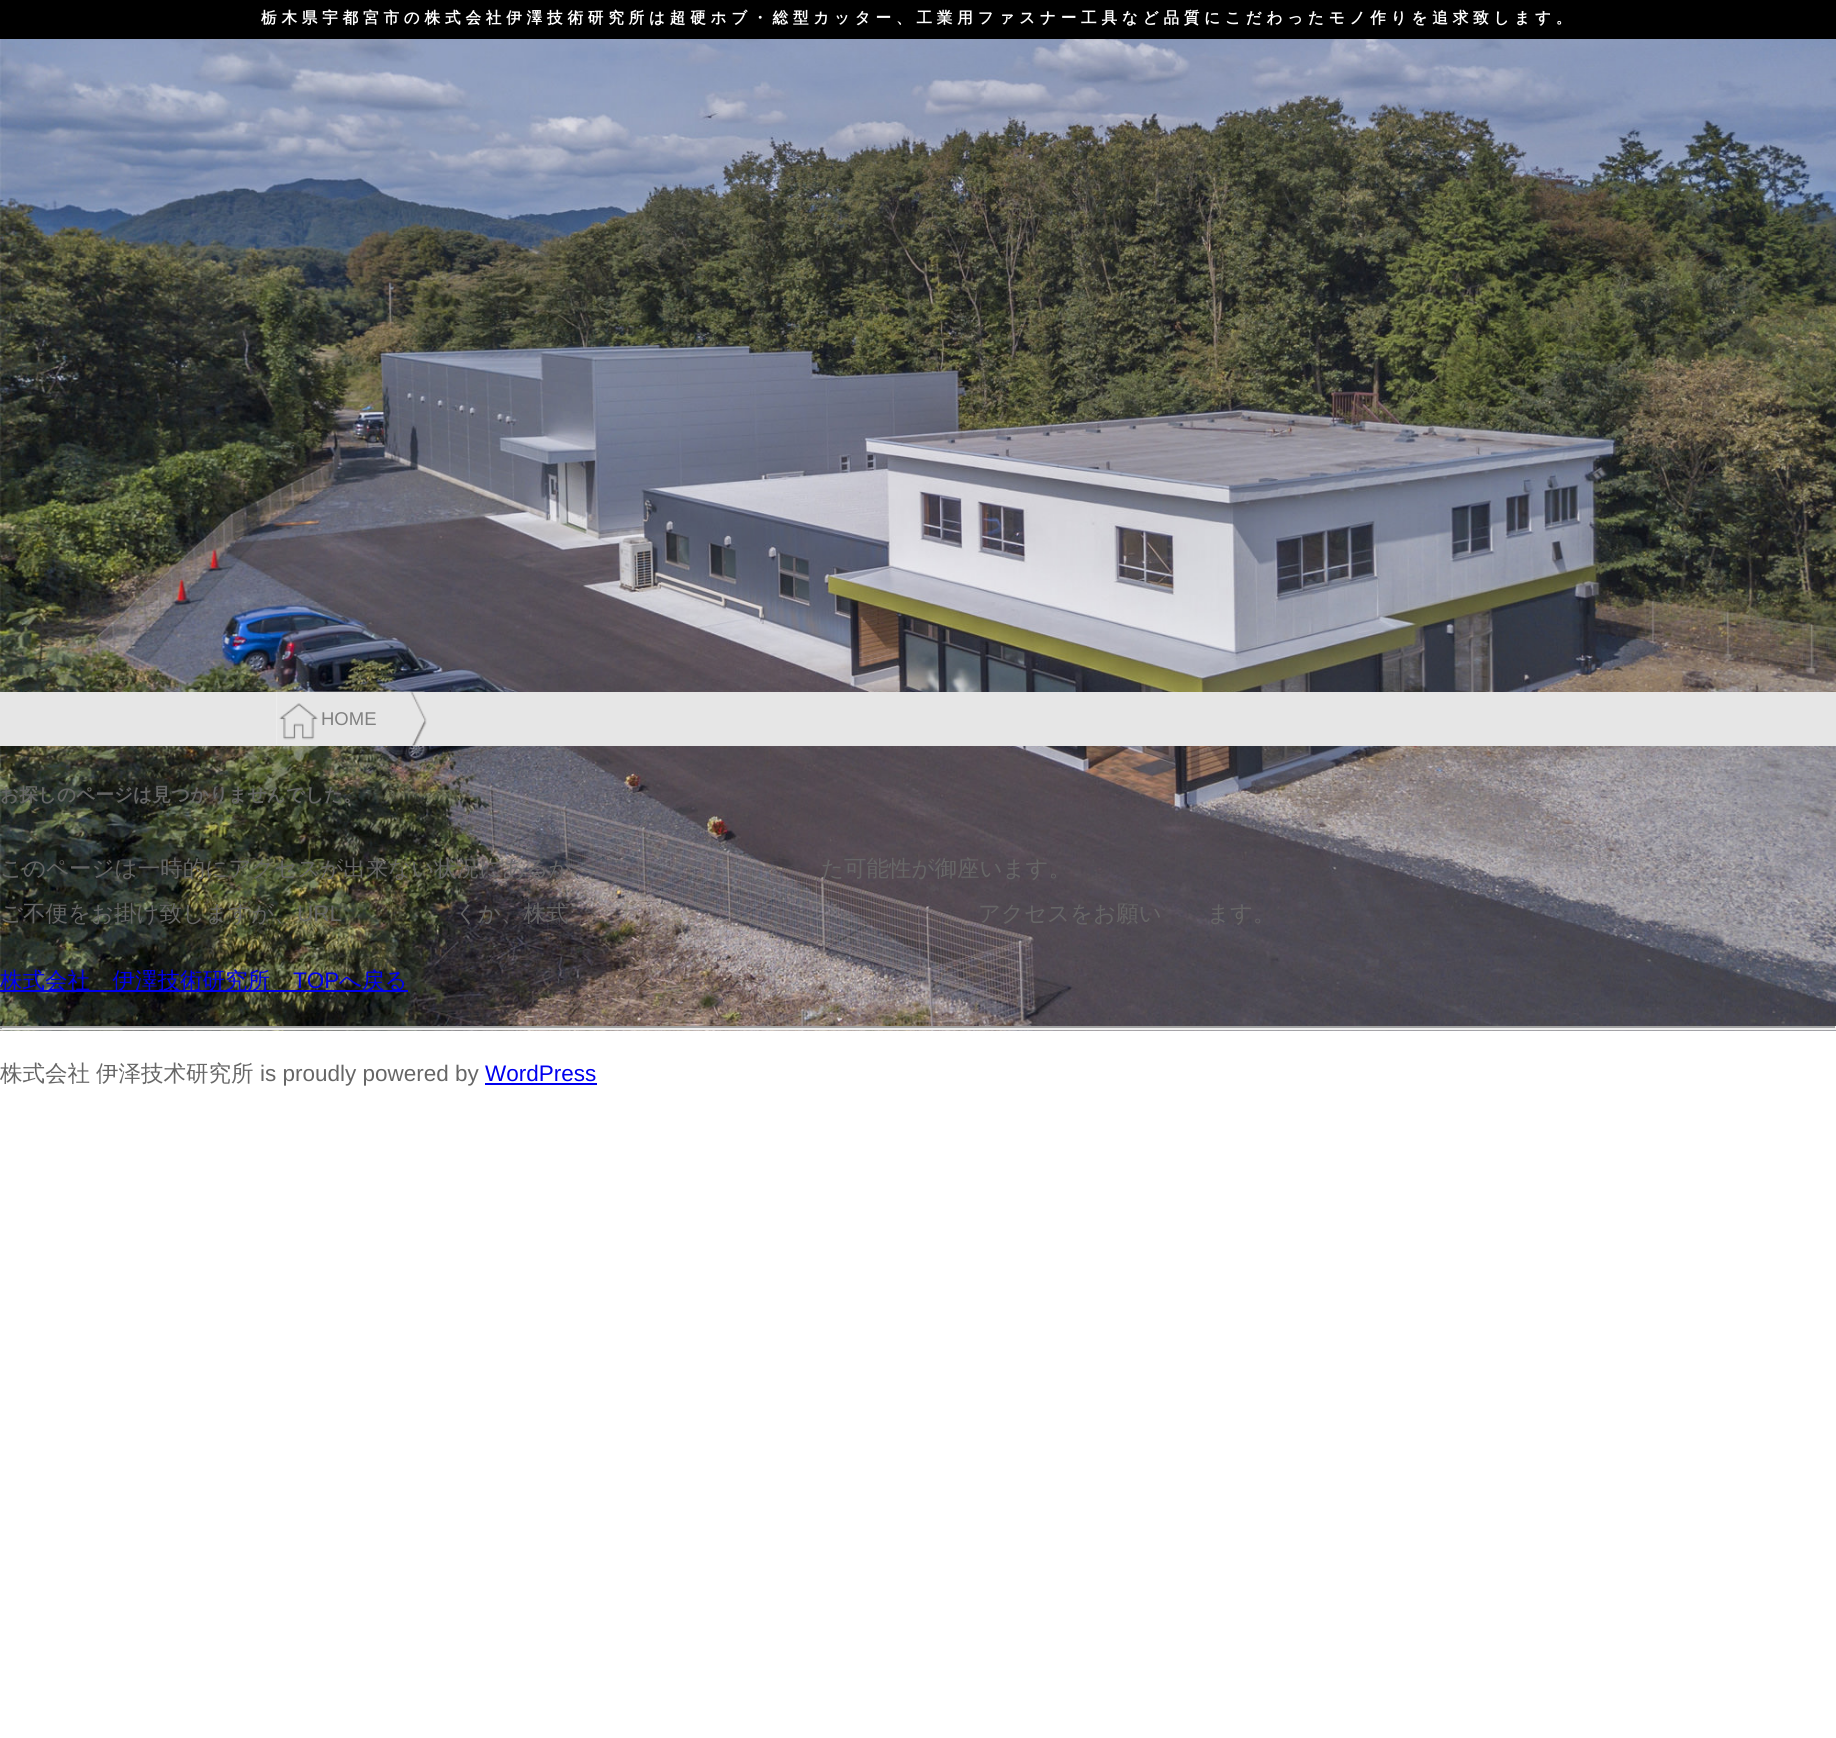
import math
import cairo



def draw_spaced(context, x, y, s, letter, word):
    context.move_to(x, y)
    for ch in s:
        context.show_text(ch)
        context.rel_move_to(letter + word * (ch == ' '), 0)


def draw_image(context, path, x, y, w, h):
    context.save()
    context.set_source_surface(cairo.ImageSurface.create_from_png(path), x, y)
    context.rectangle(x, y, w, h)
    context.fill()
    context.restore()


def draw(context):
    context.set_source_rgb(1, 1, 1)
    context.paint()
    context.set_source_rgb(0, 0, 0)
    context.rectangle(0, 0, 1836, 39)
    context.fill()
    draw_image(context, "images/1.png", 0, 39, 1836, 992)
    context.set_source_rgb(230 / 255, 230 / 255, 230 / 255)
    context.rectangle(0, 692, 1836, 54)
    context.fill()
    draw_image(context, "images/2.png", 276, 691, 149, 54)
    draw_image(context, "images/3.png", 403, 691, 24, 55)
    context.set_source_rgb(0, 0, 238 / 255)
    context.rectangle(0, 990, 408, 2)
    context.fill()
    context.set_source_rgb(159 / 255, 159 / 255, 159 / 255)
    context.rectangle(0, 1026, 1836, 2)
    context.fill()
    context.set_source_rgb(238 / 255, 238 / 255, 238 / 255)
    context.rectangle(1835, 1026, 1, 3)
    context.fill()
    context.rectangle(0, 1028, 1836, 2)
    context.fill()
    context.set_source_rgb(159 / 255, 159 / 255, 159 / 255)
    context.rectangle(0, 1026, 2, 3)
    context.fill()
    context.set_source_rgb(0, 0, 238 / 255)
    context.rectangle(485, 1083, 112, 2)
    context.fill()
    context.select_font_face("WenQuanYi Zen Hei", cairo.FontSlant.NORMAL, cairo.FontWeight.BOLD)
    context.set_font_size(15.6)
    context.set_source_rgb(1, 1, 1)
    draw_spaced(context, 261, 23, "栃木県宇都宮市の株式会社伊澤技術研究所は超硬ホブ・総型カッター、工業用ファスナー工具など品質にこだわったモノ作りを追求致します。", 4.8, 0)
    context.select_font_face("Liberation Sans")
    context.set_font_size(18.5)
    context.set_source_rgb(128 / 255, 128 / 255, 128 / 255)
    context.move_to(321, 725)
    context.show_text("HOME")
    context.select_font_face("WenQuanYi Zen Hei", cairo.FontSlant.NORMAL, cairo.FontWeight.BOLD)
    context.set_font_size(18.7)
    context.set_source_rgb(102 / 255, 102 / 255, 102 / 255)
    context.move_to(0, 801)
    context.show_text("お探しのページは見つかりませんでした。")
    context.select_font_face("WenQuanYi Zen Hei Medium")
    context.set_font_size(22.5)
    context.move_to(0, 876)
    context.show_text("このページは一時的にアクセスが出来ない状況にあるか、")
    context.move_to(821, 876)
    context.show_text("た可能性が御座います。")
    context.move_to(0, 921)
    context.show_text("ご不便をお掛け致しますが、")
    context.select_font_face("Liberation Sans")
    context.move_to(297, 921)
    context.show_text("URL")
    context.select_font_face("WenQuanYi Zen Hei Medium")
    context.move_to(455, 921)
    context.show_text("くか、株式")
    context.move_to(978, 921)
    context.show_text("アクセスをお願い")
    context.move_to(1207, 921)
    context.show_text("ます。")
    context.set_source_rgb(0, 0, 238 / 255)
    context.move_to(0, 988)
    context.show_text("株式会社　伊澤技術研究所")
    context.select_font_face("Liberation Sans")
    context.move_to(293, 988)
    context.show_text("TOP")
    context.select_font_face("WenQuanYi Zen Hei Medium")
    context.move_to(339, 988)
    context.show_text("へ戻る")
    context.set_source_rgb(102 / 255, 102 / 255, 102 / 255)
    context.move_to(0, 1081)
    context.show_text("株式会社")
    context.move_to(96, 1081)
    context.show_text("伊泽技术研究所")
    context.select_font_face("Liberation Sans")
    context.move_to(260, 1081)
    context.show_text("is proudly powered by")
    context.set_source_rgb(0, 0, 238 / 255)
    context.move_to(485, 1081)
    context.show_text("WordPress")


surface = cairo.ImageSurface(cairo.Format.RGB24, 1836, 1738)
context = cairo.Context(surface)
options = cairo.FontOptions()
options.set_hint_metrics(cairo.HintMetrics.OFF)
options.set_hint_style(cairo.HintStyle.NONE)
context.set_font_options(options)
context.set_miter_limit(4)
draw(context)
surface.write_to_png("out.png")
